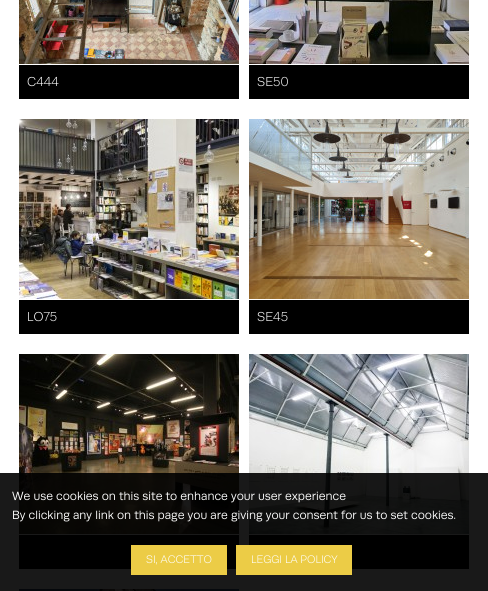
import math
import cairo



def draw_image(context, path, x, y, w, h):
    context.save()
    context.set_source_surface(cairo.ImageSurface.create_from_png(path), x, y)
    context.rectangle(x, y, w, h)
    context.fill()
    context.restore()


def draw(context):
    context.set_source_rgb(1, 1, 1)
    context.paint()
    draw_image(context, "images/1.png", 19, 0, 220, 64)
    context.set_source_rgb(0, 0, 0)
    context.rectangle(19, 65, 220, 34)
    context.fill()
    draw_image(context, "images/2.png", 249, 0, 220, 64)
    context.rectangle(249, 65, 220, 34)
    context.fill()
    draw_image(context, "images/3.png", 19, 119, 220, 180)
    context.rectangle(19, 300, 220, 34)
    context.fill()
    draw_image(context, "images/4.png", 249, 119, 220, 180)
    context.rectangle(249, 300, 220, 34)
    context.fill()
    draw_image(context, "images/5.png", 19, 354, 220, 180)
    context.rectangle(19, 535, 220, 34)
    context.fill()
    draw_image(context, "images/6.png", 249, 354, 220, 180)
    context.rectangle(249, 535, 220, 34)
    context.fill()
    draw_image(context, "images/7.png", 19, 589, 220, 2)
    context.set_source_rgba(0, 0, 0, 0.9)
    context.rectangle(0, 473, 488, 118)
    context.fill()
    context.set_source_rgb(236 / 255, 204 / 255, 70 / 255)
    context.rectangle(131, 545, 96, 30)
    context.fill()
    context.rectangle(236, 545, 116, 30)
    context.fill()
    context.select_font_face("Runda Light")
    context.set_font_size(13)
    context.set_source_rgb(1, 1, 1)
    context.move_to(27, 86)
    context.show_text("C444")
    context.move_to(257, 86)
    context.show_text("SE50")
    context.move_to(27, 321)
    context.show_text("LO75")
    context.move_to(257, 321)
    context.show_text("SE45")
    context.select_font_face("Runda")
    context.set_font_size(12)
    context.move_to(12, 500)
    context.show_text("We use cookies on this site to enhance your user experience")
    context.move_to(12, 519)
    context.show_text("By clicking any link on this page you are giving your consent for us to set cookies.")
    context.select_font_face("Runda Light")
    context.set_font_size(11)
    context.move_to(146, 563)
    context.show_text("SI, ACCETTO")
    context.move_to(251, 563)
    context.show_text("LEGGI LA POLICY")


surface = cairo.ImageSurface(cairo.Format.RGB24, 488, 591)
context = cairo.Context(surface)
options = cairo.FontOptions()
options.set_hint_metrics(cairo.HintMetrics.OFF)
options.set_hint_style(cairo.HintStyle.NONE)
context.set_font_options(options)
context.set_miter_limit(4)
draw(context)
surface.write_to_png("out.png")
